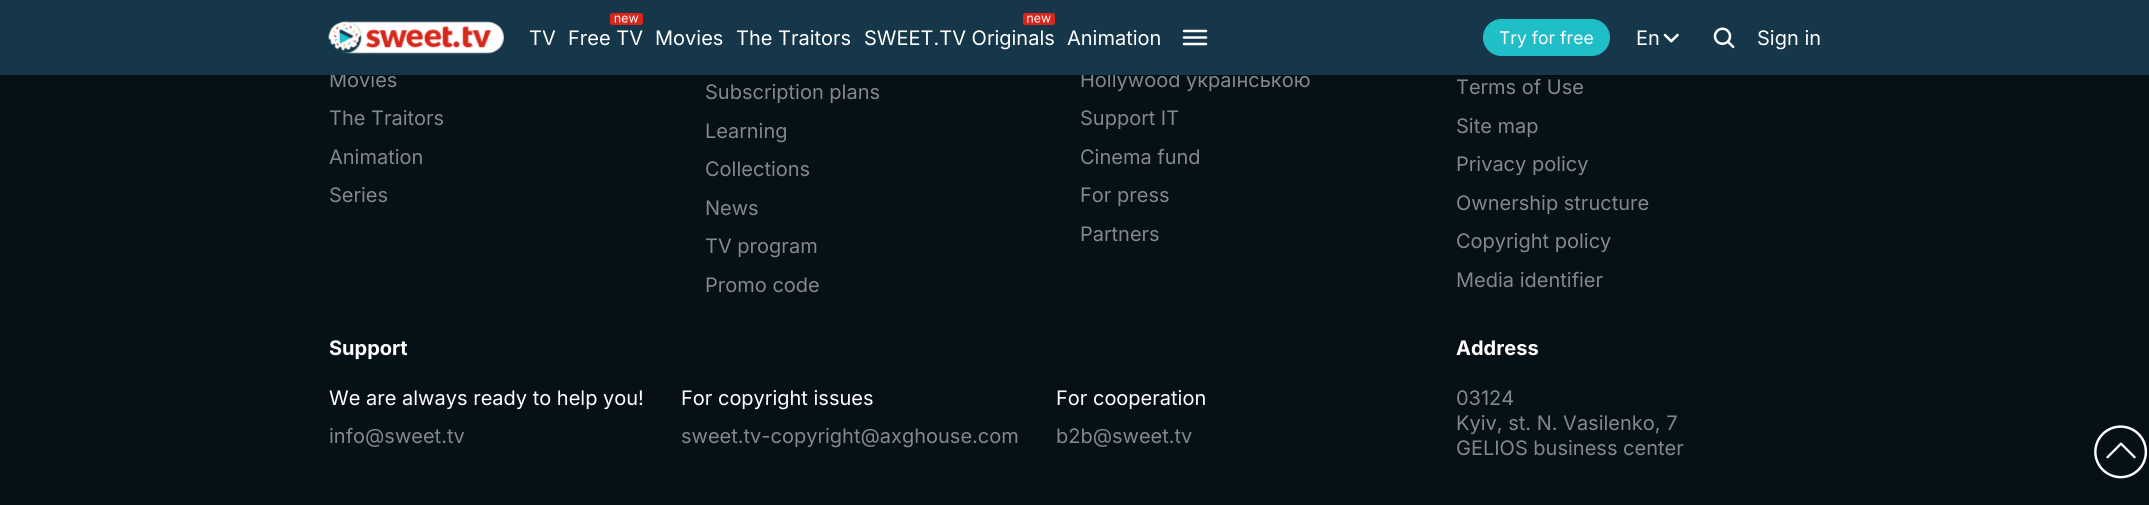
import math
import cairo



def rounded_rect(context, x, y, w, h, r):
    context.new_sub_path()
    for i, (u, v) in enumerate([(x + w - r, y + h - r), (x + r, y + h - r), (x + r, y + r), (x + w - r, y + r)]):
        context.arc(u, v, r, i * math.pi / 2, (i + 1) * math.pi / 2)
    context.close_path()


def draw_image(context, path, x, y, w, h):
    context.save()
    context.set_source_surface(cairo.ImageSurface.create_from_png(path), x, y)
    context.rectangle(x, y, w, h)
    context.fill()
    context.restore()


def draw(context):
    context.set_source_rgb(6 / 255, 16 / 255, 23 / 255)
    context.paint()
    draw_image(context, "images/6.png", 2094, 425, 54, 54)
    context.select_font_face("Inter")
    context.set_font_size(20)
    context.set_source_rgb(131 / 255, 136 / 255, 139 / 255)
    context.move_to(329, 87)
    context.show_text("Movies")
    context.move_to(329, 125)
    context.show_text("The Traitors")
    context.move_to(329, 164)
    context.show_text("Animation")
    context.move_to(329, 202)
    context.show_text("Series")
    context.move_to(705, 99)
    context.show_text("Subscription plans")
    context.move_to(705, 138)
    context.show_text("Learning")
    context.move_to(705, 176)
    context.show_text("Collections")
    context.move_to(705, 215)
    context.show_text("News")
    context.move_to(705, 253)
    context.show_text("TV program")
    context.move_to(705, 292)
    context.show_text("Promo code")
    context.move_to(1080, 87)
    context.show_text("Hollywood українською")
    context.set_source_rgb(21 / 255, 55 / 255, 73 / 255)
    context.rectangle(0, 0, 2149, 75)
    context.fill()
    draw_image(context, "images/5.png", 1713, 27, 22, 22)
    draw_image(context, "images/4.png", 1663, 33, 16, 10)
    context.set_source_rgb(1, 1, 1)
    context.move_to(1636, 45)
    context.show_text("En")
    context.new_path()
    context.move_to(1184, 31)
    context.line_to(1206, 31)
    context.move_to(1184, 37.5)
    context.line_to(1206, 37.5)
    context.move_to(1184, 44)
    context.line_to(1206, 44)
    context.set_line_width(2.5)
    context.set_line_cap(cairo.LineCap.ROUND)
    context.stroke()
    context.move_to(1067, 45)
    context.show_text("Animation")
    draw_image(context, "images/3.png", 1023, 13, 32, 12)
    context.move_to(864, 45)
    context.show_text("SWEET.TV Originals")
    context.move_to(736, 45)
    context.show_text("The Traitors")
    context.move_to(655, 45)
    context.show_text("Movies")
    draw_image(context, "images/2.png", 610, 13, 33, 12)
    context.move_to(568, 45)
    context.show_text("Free TV")
    context.move_to(529, 45)
    context.show_text("TV")
    draw_image(context, "images/1.png", 328, 21, 176, 33)
    context.move_to(1757, 45)
    context.show_text("Sign in")
    context.set_source_rgb(32 / 255, 190 / 255, 198 / 255)
    rounded_rect(context, 1483.5, 19.5, 126, 36, 18)
    context.fill_preserve()
    context.set_line_width(1)
    context.set_line_cap(cairo.LineCap.BUTT)
    context.stroke()
    context.set_font_size(17.5)
    context.set_source_rgb(1, 1, 1)
    context.move_to(1499, 44)
    context.show_text("Try for free")
    context.set_font_size(20)
    context.set_source_rgb(131 / 255, 136 / 255, 139 / 255)
    context.move_to(1080, 125)
    context.show_text("Support IT")
    context.move_to(1080, 164)
    context.show_text("Cinema fund")
    context.move_to(1080, 202)
    context.show_text("For press")
    context.move_to(1080, 241)
    context.show_text("Partners")
    context.move_to(1456, 94)
    context.show_text("Terms of Use")
    context.move_to(1456, 133)
    context.show_text("Site map")
    context.move_to(1456, 171)
    context.show_text("Privacy policy")
    context.move_to(1456, 210)
    context.show_text("Ownership structure")
    context.move_to(1456, 248)
    context.show_text("Copyright policy")
    context.move_to(1456, 287)
    context.show_text("Media identifier")
    context.select_font_face("Inter", cairo.FontSlant.NORMAL, cairo.FontWeight.BOLD)
    context.set_source_rgb(1, 1, 1)
    context.move_to(329, 355)
    context.show_text("Support")
    context.select_font_face("Inter")
    context.move_to(329, 405)
    context.show_text("We are always ready to help you!")
    context.set_source_rgb(131 / 255, 136 / 255, 139 / 255)
    context.move_to(329, 443)
    context.show_text("info@sweet.tv")
    context.set_source_rgb(1, 1, 1)
    context.move_to(681, 405)
    context.show_text("For copyright issues")
    context.set_source_rgb(131 / 255, 136 / 255, 139 / 255)
    context.move_to(681, 443)
    context.show_text("sweet.tv-copyright@axghouse.com")
    context.set_source_rgb(1, 1, 1)
    context.move_to(1056, 405)
    context.show_text("For cooperation")
    context.set_source_rgb(131 / 255, 136 / 255, 139 / 255)
    context.move_to(1056, 443)
    context.show_text("b2b@sweet.tv")
    context.select_font_face("Inter", cairo.FontSlant.NORMAL, cairo.FontWeight.BOLD)
    context.set_source_rgb(1, 1, 1)
    context.move_to(1456, 355)
    context.show_text("Address")
    context.select_font_face("Inter")
    context.set_source_rgb(131 / 255, 136 / 255, 139 / 255)
    context.move_to(1456, 405)
    context.show_text("03124")
    context.move_to(1456, 430)
    context.show_text("Kyiv, st. N. Vasilenko, 7")
    context.move_to(1456, 455)
    context.show_text("GELIOS business center")


surface = cairo.ImageSurface(cairo.Format.RGB24, 2149, 505)
context = cairo.Context(surface)
options = cairo.FontOptions()
options.set_hint_metrics(cairo.HintMetrics.OFF)
options.set_hint_style(cairo.HintStyle.NONE)
context.set_font_options(options)
context.set_miter_limit(4)
draw(context)
surface.write_to_png("out.png")
